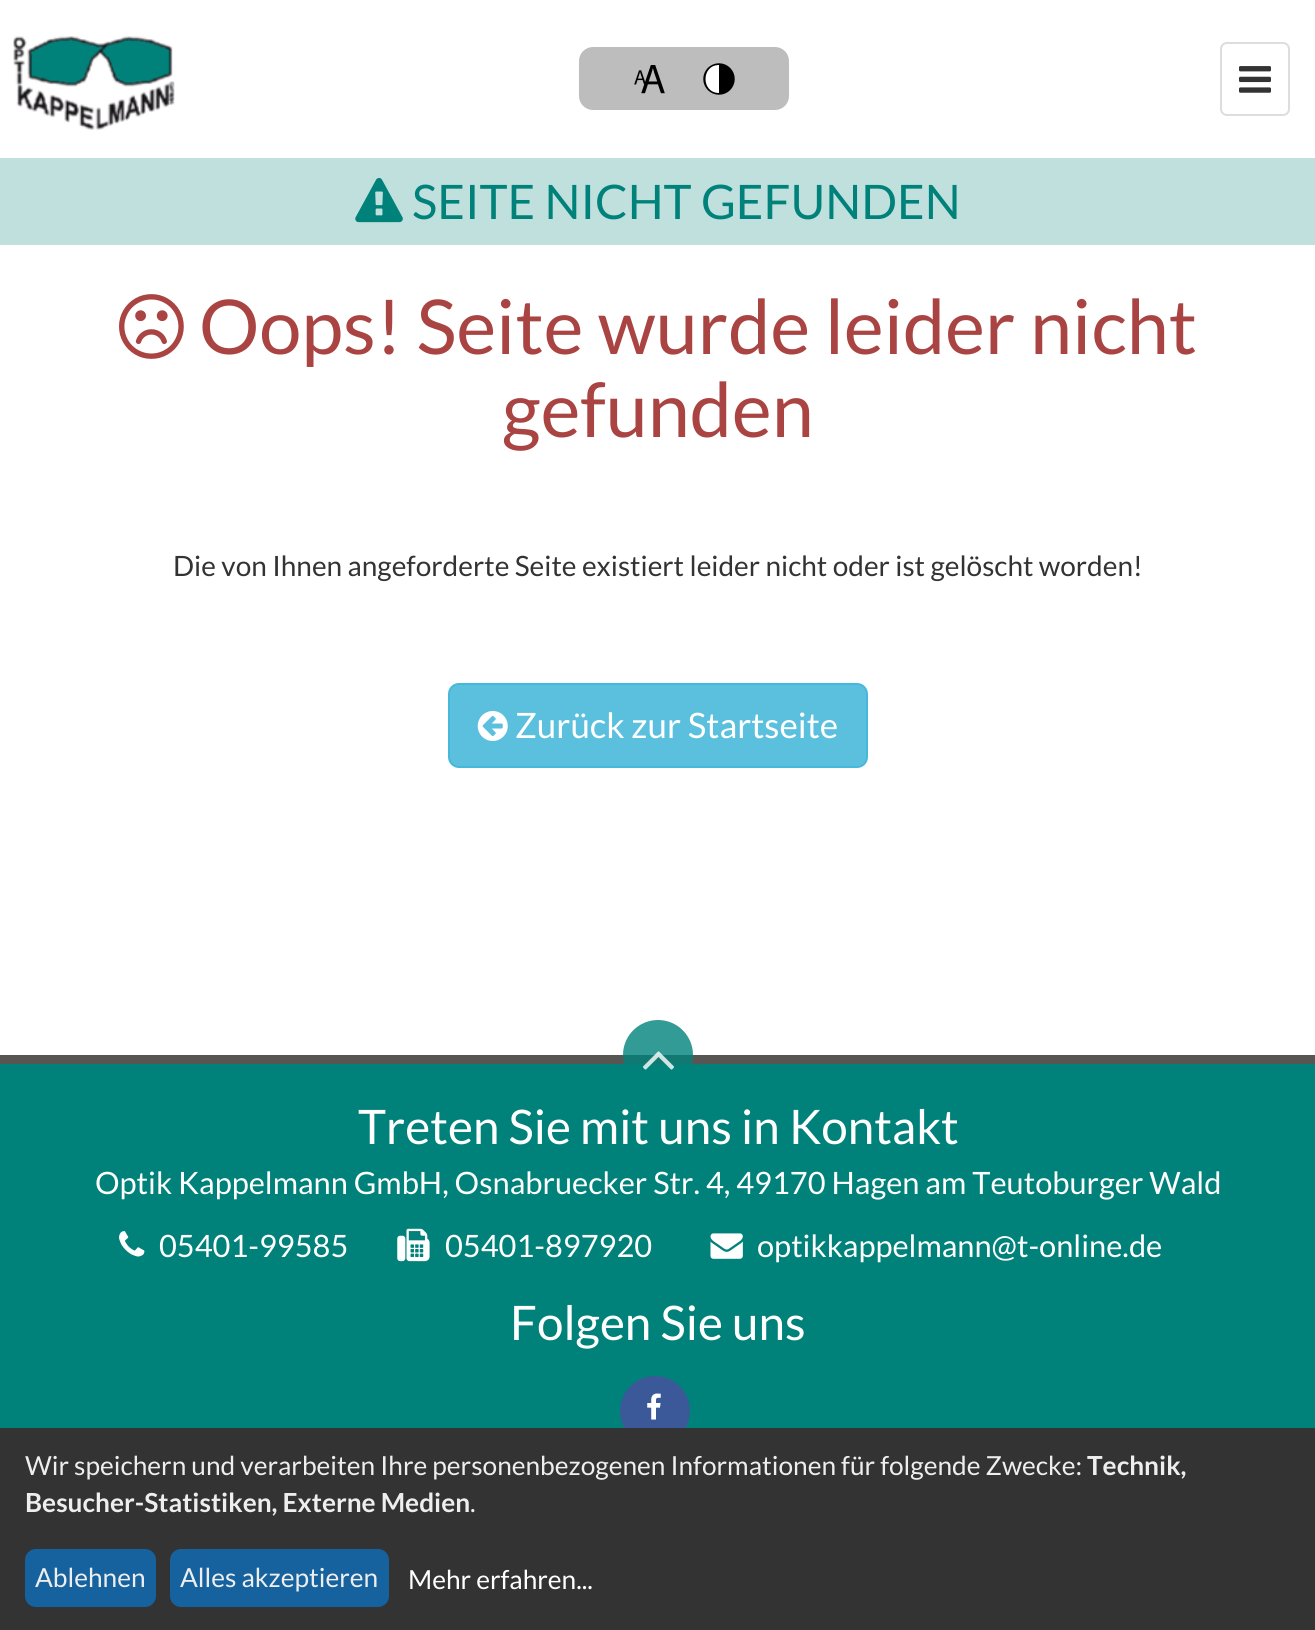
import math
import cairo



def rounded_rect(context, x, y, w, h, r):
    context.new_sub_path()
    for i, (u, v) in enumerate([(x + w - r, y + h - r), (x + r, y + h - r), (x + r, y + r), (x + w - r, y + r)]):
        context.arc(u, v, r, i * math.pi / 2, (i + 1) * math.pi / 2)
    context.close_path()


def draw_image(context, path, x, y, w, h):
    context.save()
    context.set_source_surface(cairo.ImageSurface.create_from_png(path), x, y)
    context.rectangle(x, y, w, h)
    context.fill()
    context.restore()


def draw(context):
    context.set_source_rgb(1, 1, 1)
    context.paint()
    draw_image(context, "images/1.png", 13, 36, 162, 94)
    rounded_rect(context, 1221, 43, 68, 72, 6)
    context.set_source_rgb(221 / 255, 221 / 255, 221 / 255)
    context.stroke()
    draw_image(context, "images/2.png", 1239, 66, 32, 27)
    context.set_source_rgb(189 / 255, 189 / 255, 189 / 255)
    rounded_rect(context, 579, 47, 210, 63, 14)
    context.fill()
    draw_image(context, "images/3.png", 634, 65, 31, 29)
    context.set_source_rgb(0, 0, 0)
    context.arc(719, 79, 14, 0, 2 * math.pi)
    context.fill_preserve()
    context.set_line_width(3.5)
    context.stroke()
    context.set_source_rgb(1, 1, 1)
    context.new_path()
    context.move_to(719, 93)
    context.curve_to(701, 93, 701, 65, 719, 65)
    context.fill()
    context.set_source_rgb(192 / 255, 224 / 255, 222 / 255)
    context.rectangle(0, 158, 1315, 87)
    context.fill()
    draw_image(context, "images/4.png", 355, 178, 48, 45)
    draw_image(context, "images/5.png", 119, 294, 65, 65)
    context.set_source_rgb(91 / 255, 192 / 255, 222 / 255)
    rounded_rect(context, 449, 684, 418, 83, 10)
    context.fill_preserve()
    context.set_source_rgb(70 / 255, 184 / 255, 218 / 255)
    context.set_line_width(2)
    context.stroke()
    draw_image(context, "images/6.png", 477, 711, 31, 30)
    context.set_source_rgb(0, 130 / 255, 123 / 255)
    context.rectangle(0, 1064, 1315, 364)
    context.fill()
    context.set_source_rgb(87 / 255, 86 / 255, 82 / 255)
    context.rectangle(0, 1055, 1315, 9)
    context.fill()
    context.set_source_rgba(0, 130 / 255, 123 / 255, 0.8)
    context.arc(658, 1055, 35, 0, 2 * math.pi)
    context.fill()
    draw_image(context, "images/7.png", 643, 1051, 31, 19)
    draw_image(context, "images/8.png", 119, 1231, 26, 26)
    draw_image(context, "images/9.png", 397, 1228, 33, 34)
    draw_image(context, "images/10.png", 710, 1233, 33, 26)
    context.set_source_rgb(59 / 255, 89 / 255, 152 / 255)
    context.arc(655, 1411, 35, 0, 2 * math.pi)
    context.fill()
    draw_image(context, "images/11.png", 647, 1393, 14, 27)
    context.set_source_rgb(51 / 255, 51 / 255, 51 / 255)
    context.rectangle(0, 1428, 1315, 202)
    context.fill()
    context.set_source_rgb(22 / 255, 98 / 255, 159 / 255)
    rounded_rect(context, 25, 1549, 131, 58, 11)
    context.fill()
    rounded_rect(context, 170, 1549, 219, 58, 11)
    context.fill()
    context.select_font_face("Lato")
    context.set_font_size(47.6)
    context.set_source_rgb(0, 130 / 255, 123 / 255)
    context.move_to(412, 219)
    context.show_text("SEITE NICHT GEFUNDEN")
    context.set_font_size(75.6)
    context.set_source_rgb(169 / 255, 68 / 255, 66 / 255)
    context.move_to(199, 354)
    context.show_text("Oops! Seite wurde leider nicht")
    context.move_to(502, 437)
    context.show_text("gefunden")
    context.set_font_size(28)
    context.set_source_rgb(51 / 255, 51 / 255, 51 / 255)
    context.move_to(173, 576)
    context.show_text("Die von Ihnen angeforderte Seite existiert leider nicht oder ist gelöscht worden!")
    context.set_font_size(35)
    context.set_source_rgb(1, 1, 1)
    context.move_to(515, 738)
    context.show_text("Zurück zur Startseite")
    context.set_font_size(47.6)
    context.move_to(358, 1144)
    context.show_text("Treten Sie mit uns in Kontakt")
    context.set_font_size(30.8)
    context.move_to(95, 1194)
    context.show_text("Optik Kappelmann GmbH, Osnabruecker Str. 4, 49170 Hagen am Teutoburger Wald")
    context.move_to(159, 1257)
    context.show_text("05401-99585")
    context.move_to(445, 1257)
    context.show_text("05401-897920")
    context.move_to(757, 1257)
    context.show_text("optikkappelmann@t-online.de")
    context.set_font_size(47.6)
    context.move_to(510, 1340)
    context.show_text("Folgen Sie uns")
    context.set_font_size(26.25)
    context.set_source_rgb(238 / 255, 238 / 255, 238 / 255)
    context.move_to(25, 1475)
    context.show_text("Wir speichern und verarbeiten Ihre personenbezogenen Informationen für folgende Zwecke:")
    context.select_font_face("Lato", cairo.FontSlant.NORMAL, cairo.FontWeight.BOLD)
    context.move_to(1087, 1475)
    context.show_text("Technik,")
    context.move_to(25, 1512)
    context.show_text("Besucher-Statistiken, Externe Medien")
    context.select_font_face("Lato")
    context.move_to(470, 1512)
    context.show_text(".")
    context.move_to(35, 1587)
    context.show_text("Ablehnen")
    context.move_to(180, 1587)
    context.show_text("Alles akzeptieren")
    context.set_source_rgb(1, 1, 1)
    context.move_to(408, 1589)
    context.show_text("Mehr erfahren...")


surface = cairo.ImageSurface(cairo.Format.RGB24, 1315, 1630)
context = cairo.Context(surface)
options = cairo.FontOptions()
options.set_hint_metrics(cairo.HintMetrics.OFF)
options.set_hint_style(cairo.HintStyle.NONE)
context.set_font_options(options)
context.set_miter_limit(4)
draw(context)
surface.write_to_png("out.png")
